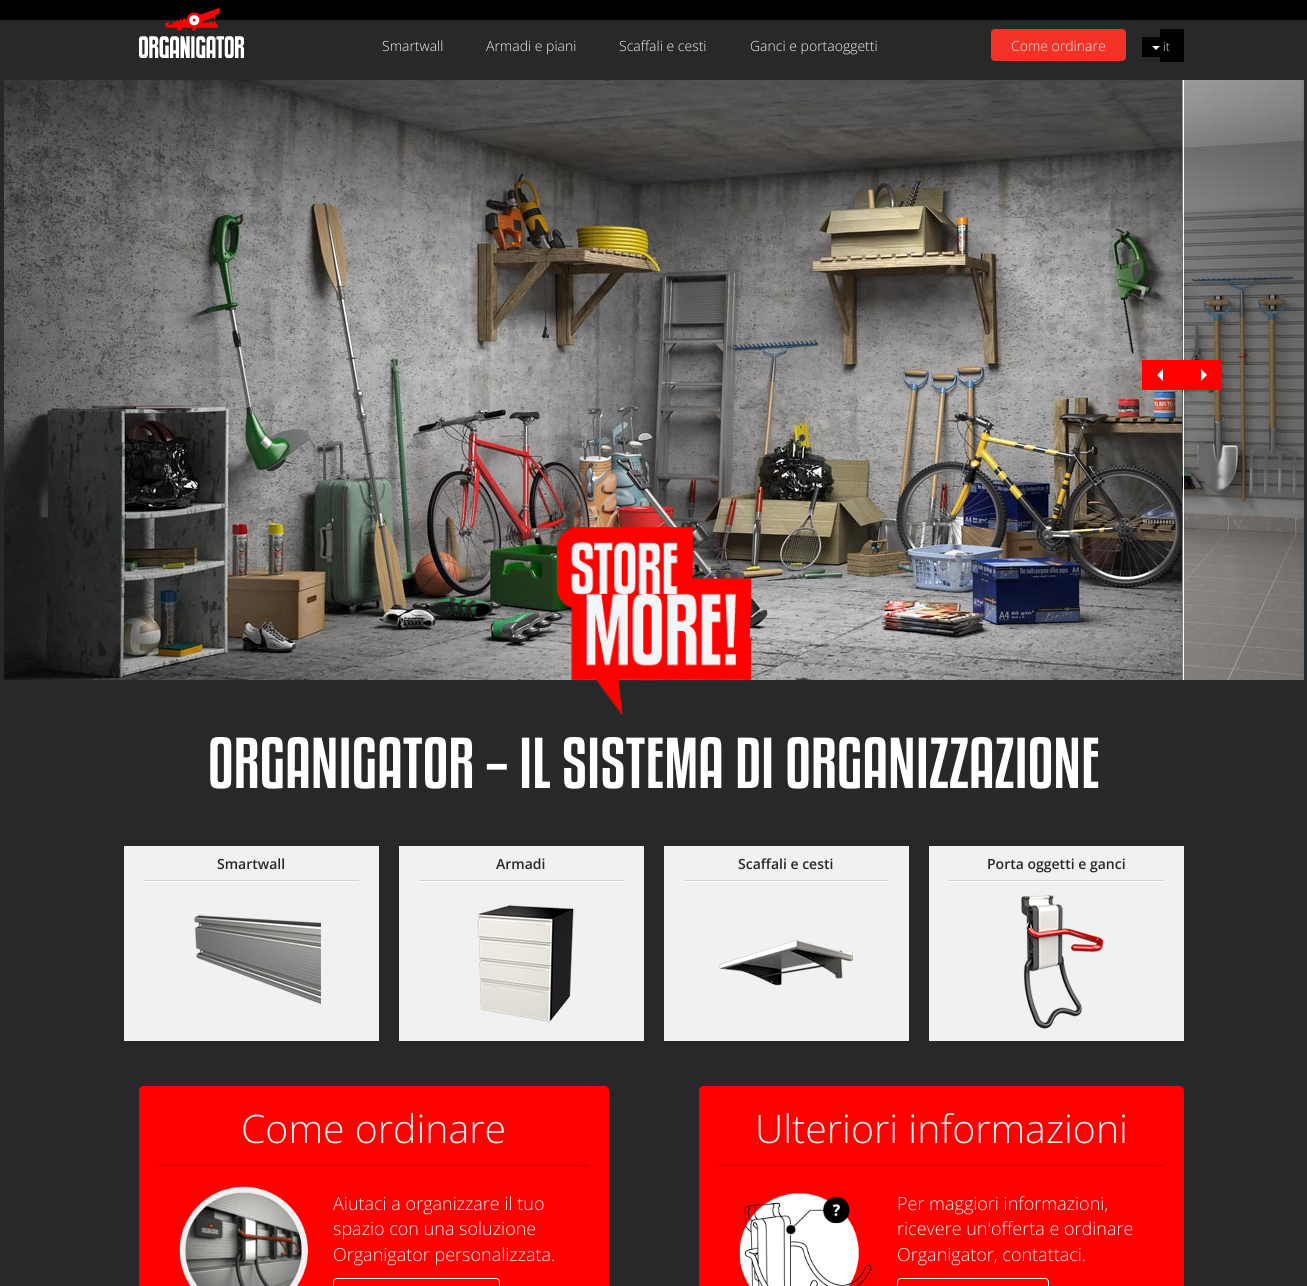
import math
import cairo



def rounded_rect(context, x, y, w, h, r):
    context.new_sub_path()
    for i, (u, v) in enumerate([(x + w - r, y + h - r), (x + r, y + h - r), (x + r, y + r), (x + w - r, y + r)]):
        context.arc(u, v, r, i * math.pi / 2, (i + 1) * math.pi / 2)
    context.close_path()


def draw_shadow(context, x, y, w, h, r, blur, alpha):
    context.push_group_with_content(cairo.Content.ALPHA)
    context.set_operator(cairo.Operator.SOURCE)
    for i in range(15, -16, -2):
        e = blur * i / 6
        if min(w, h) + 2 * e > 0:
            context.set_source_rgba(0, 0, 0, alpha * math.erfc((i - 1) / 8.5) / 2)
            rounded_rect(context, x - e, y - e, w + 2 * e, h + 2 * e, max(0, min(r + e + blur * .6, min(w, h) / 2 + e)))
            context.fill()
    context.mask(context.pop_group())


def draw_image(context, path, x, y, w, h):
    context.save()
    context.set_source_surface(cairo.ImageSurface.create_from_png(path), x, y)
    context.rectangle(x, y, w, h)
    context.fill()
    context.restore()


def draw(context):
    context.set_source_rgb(39 / 255, 40 / 255, 42 / 255)
    context.paint()
    context.set_source_rgb(0, 0, 0)
    context.rectangle(0, 0, 1307, 20)
    context.fill()
    draw_image(context, "images/1.png", 139, 8, 105, 50)
    context.set_source_rgb(242 / 255, 50 / 255, 37 / 255)
    rounded_rect(context, 991, 29, 135, 32, 4)
    context.fill()
    context.set_source_rgb(0, 0, 0)
    context.rectangle(1142, 37, 18, 20)
    context.fill()
    context.rectangle(1160, 29, 24, 33)
    context.fill()
    context.set_source_rgb(241 / 255, 241 / 255, 242 / 255)
    context.new_path()
    context.move_to(1152, 46)
    context.line_to(1160, 46)
    context.line_to(1156, 50)
    context.close_path()
    context.fill()
    draw_image(context, "images/2.png", 4, 80, 1178, 600)
    draw_image(context, "images/3.png", 1182, 80, 122, 600)
    context.set_source_rgb(1, 0, 1 / 255)
    context.rectangle(1142, 360, 80, 30)
    context.fill()
    context.set_source_rgb(1, 1, 1)
    context.rectangle(1183, 80, 1, 277)
    context.fill()
    context.new_path()
    context.move_to(1163, 369)
    context.line_to(1163, 381)
    context.line_to(1157, 375)
    context.close_path()
    context.move_to(1201, 381)
    context.line_to(1201, 369)
    context.line_to(1207, 375)
    context.close_path()
    context.move_to(1183, 357)
    context.line_to(1183, 360)
    context.line_to(1184, 360)
    context.line_to(1184, 357)
    context.close_path()
    context.fill()
    context.new_path()
    context.move_to(1183, 390)
    context.line_to(1183, 393)
    context.line_to(1184, 393)
    context.line_to(1184, 390)
    context.close_path()
    context.fill()
    context.rectangle(1183, 393, 1, 287)
    context.fill()
    draw_image(context, "images/4.png", 557, 527, 194, 188)
    context.set_source_rgb(241 / 255, 241 / 255, 242 / 255)
    context.rectangle(124, 846, 255, 195)
    context.fill()
    context.save()
    context.set_fill_rule(cairo.FillRule.EVEN_ODD)
    context.new_path()
    context.move_to(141, 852)
    context.line_to(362, 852)
    context.line_to(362, 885)
    context.line_to(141, 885)
    context.close_path()
    context.move_to(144, 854)
    context.line_to(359, 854)
    context.line_to(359, 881)
    context.line_to(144, 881)
    context.close_path()
    context.clip()
    context.set_source_rgb(1, 1, 1)
    draw_shadow(context, 144, 855, 215, 27, 0, 0.5, 1)
    context.restore()
    context.set_source_rgb(208 / 255, 210 / 255, 211 / 255)
    context.rectangle(144, 880, 215, 1)
    context.fill()
    draw_image(context, "images/5.png", 194, 914, 127, 91)
    context.set_source_rgb(241 / 255, 241 / 255, 242 / 255)
    context.rectangle(399, 846, 245, 195)
    context.fill()
    context.save()
    context.set_fill_rule(cairo.FillRule.EVEN_ODD)
    context.new_path()
    context.move_to(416, 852)
    context.line_to(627, 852)
    context.line_to(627, 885)
    context.line_to(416, 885)
    context.close_path()
    context.move_to(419, 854)
    context.line_to(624, 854)
    context.line_to(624, 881)
    context.line_to(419, 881)
    context.close_path()
    context.clip()
    context.set_source_rgb(1, 1, 1)
    draw_shadow(context, 419, 855, 205, 27, 0, 0.5, 1)
    context.restore()
    context.set_source_rgb(208 / 255, 210 / 255, 211 / 255)
    context.rectangle(419, 880, 205, 1)
    context.fill()
    draw_image(context, "images/6.png", 477, 905, 98, 118)
    context.set_source_rgb(241 / 255, 241 / 255, 242 / 255)
    context.rectangle(664, 846, 245, 195)
    context.fill()
    context.save()
    context.set_fill_rule(cairo.FillRule.EVEN_ODD)
    context.new_path()
    context.move_to(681, 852)
    context.line_to(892, 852)
    context.line_to(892, 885)
    context.line_to(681, 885)
    context.close_path()
    context.move_to(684, 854)
    context.line_to(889, 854)
    context.line_to(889, 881)
    context.line_to(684, 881)
    context.close_path()
    context.clip()
    context.set_source_rgb(1, 1, 1)
    draw_shadow(context, 684, 855, 205, 27, 0, 0.5, 1)
    context.restore()
    context.set_source_rgb(208 / 255, 210 / 255, 211 / 255)
    context.rectangle(684, 880, 205, 1)
    context.fill()
    draw_image(context, "images/7.png", 719, 940, 135, 46)
    context.set_source_rgb(241 / 255, 241 / 255, 242 / 255)
    context.rectangle(929, 846, 255, 195)
    context.fill()
    context.save()
    context.set_fill_rule(cairo.FillRule.EVEN_ODD)
    context.new_path()
    context.move_to(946, 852)
    context.line_to(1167, 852)
    context.line_to(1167, 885)
    context.line_to(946, 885)
    context.close_path()
    context.move_to(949, 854)
    context.line_to(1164, 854)
    context.line_to(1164, 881)
    context.line_to(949, 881)
    context.close_path()
    context.clip()
    context.set_source_rgb(1, 1, 1)
    draw_shadow(context, 949, 855, 215, 27, 0, 0.5, 1)
    context.restore()
    context.set_source_rgb(208 / 255, 210 / 255, 211 / 255)
    context.rectangle(949, 880, 215, 1)
    context.fill()
    draw_image(context, "images/8.png", 1021, 895, 83, 134)
    context.set_source_rgb(1, 0, 1 / 255)
    rounded_rect(context, 139, 1086, 470, 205, 5)
    context.fill()
    context.set_source_rgb(204 / 255, 0, 1 / 255)
    context.rectangle(159, 1165, 430, 1)
    context.fill()
    draw_image(context, "images/9.png", 179, 1186, 129, 100)
    rounded_rect(context, 333.5, 1278.5, 166, 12, 3.5)
    context.set_source_rgb(1, 1, 1)
    context.set_line_width(1)
    context.stroke()
    context.set_source_rgb(1, 0, 1 / 255)
    rounded_rect(context, 699, 1086, 485, 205, 5)
    context.fill()
    context.set_source_rgb(204 / 255, 0, 1 / 255)
    context.rectangle(719, 1165, 445, 1)
    context.fill()
    draw_image(context, "images/10.png", 739, 1193, 133, 93)
    rounded_rect(context, 897.5, 1278.5, 151, 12, 3.5)
    context.set_source_rgb(1, 1, 1)
    context.stroke()
    context.select_font_face("Open Sans Light")
    context.set_font_size(14)
    context.set_source_rgb(241 / 255, 241 / 255, 242 / 255)
    context.move_to(382, 51)
    context.show_text("Smartwall")
    context.move_to(486, 51)
    context.show_text("Armadi e piani")
    context.move_to(619, 51)
    context.show_text("Scaffali e cesti")
    context.move_to(750, 51)
    context.show_text("Ganci e portaoggetti")
    context.move_to(1011, 51)
    context.show_text("Come ordinare")
    context.set_font_size(12)
    context.move_to(1163, 51)
    context.show_text("it")
    context.select_font_face("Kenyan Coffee")
    context.set_font_size(63.75)
    context.set_source_rgb(1, 1, 1)
    context.move_to(208, 788)
    context.show_text("ORGANIGATOR – IL SISTEMA DI ORGANIZZAZIONE")
    context.select_font_face("Open Sans SemiBold")
    context.set_font_size(14)
    context.set_source_rgb(39 / 255, 40 / 255, 42 / 255)
    context.move_to(217, 869)
    context.show_text("Smartwall")
    context.move_to(496, 869)
    context.show_text("Armadi")
    context.move_to(738, 869)
    context.show_text("Scaffali e cesti")
    context.move_to(987, 869)
    context.show_text("Porta oggetti e ganci")
    context.select_font_face("Open Sans Light")
    context.set_font_size(39.25)
    context.set_source_rgb(241 / 255, 241 / 255, 242 / 255)
    context.move_to(241, 1143)
    context.show_text("Come ordinare")
    context.set_font_size(18)
    context.move_to(333, 1210)
    context.show_text("Aiutaci a organizzare il tuo")
    context.move_to(333, 1235)
    context.show_text("spazio con una soluzione")
    context.move_to(333, 1261)
    context.show_text("Organigator personalizzata.")
    context.set_font_size(39.25)
    context.move_to(755, 1143)
    context.show_text("Ulteriori informazioni")
    context.set_font_size(18)
    context.move_to(897, 1210)
    context.show_text("Per maggiori informazioni,")
    context.move_to(897, 1235)
    context.show_text("ricevere un'offerta e ordinare")
    context.move_to(897, 1261)
    context.show_text("Organigator, contattaci.")


surface = cairo.ImageSurface(cairo.Format.RGB24, 1307, 1286)
context = cairo.Context(surface)
options = cairo.FontOptions()
options.set_hint_metrics(cairo.HintMetrics.OFF)
options.set_hint_style(cairo.HintStyle.NONE)
context.set_font_options(options)
context.set_miter_limit(4)
draw(context)
surface.write_to_png("out.png")
